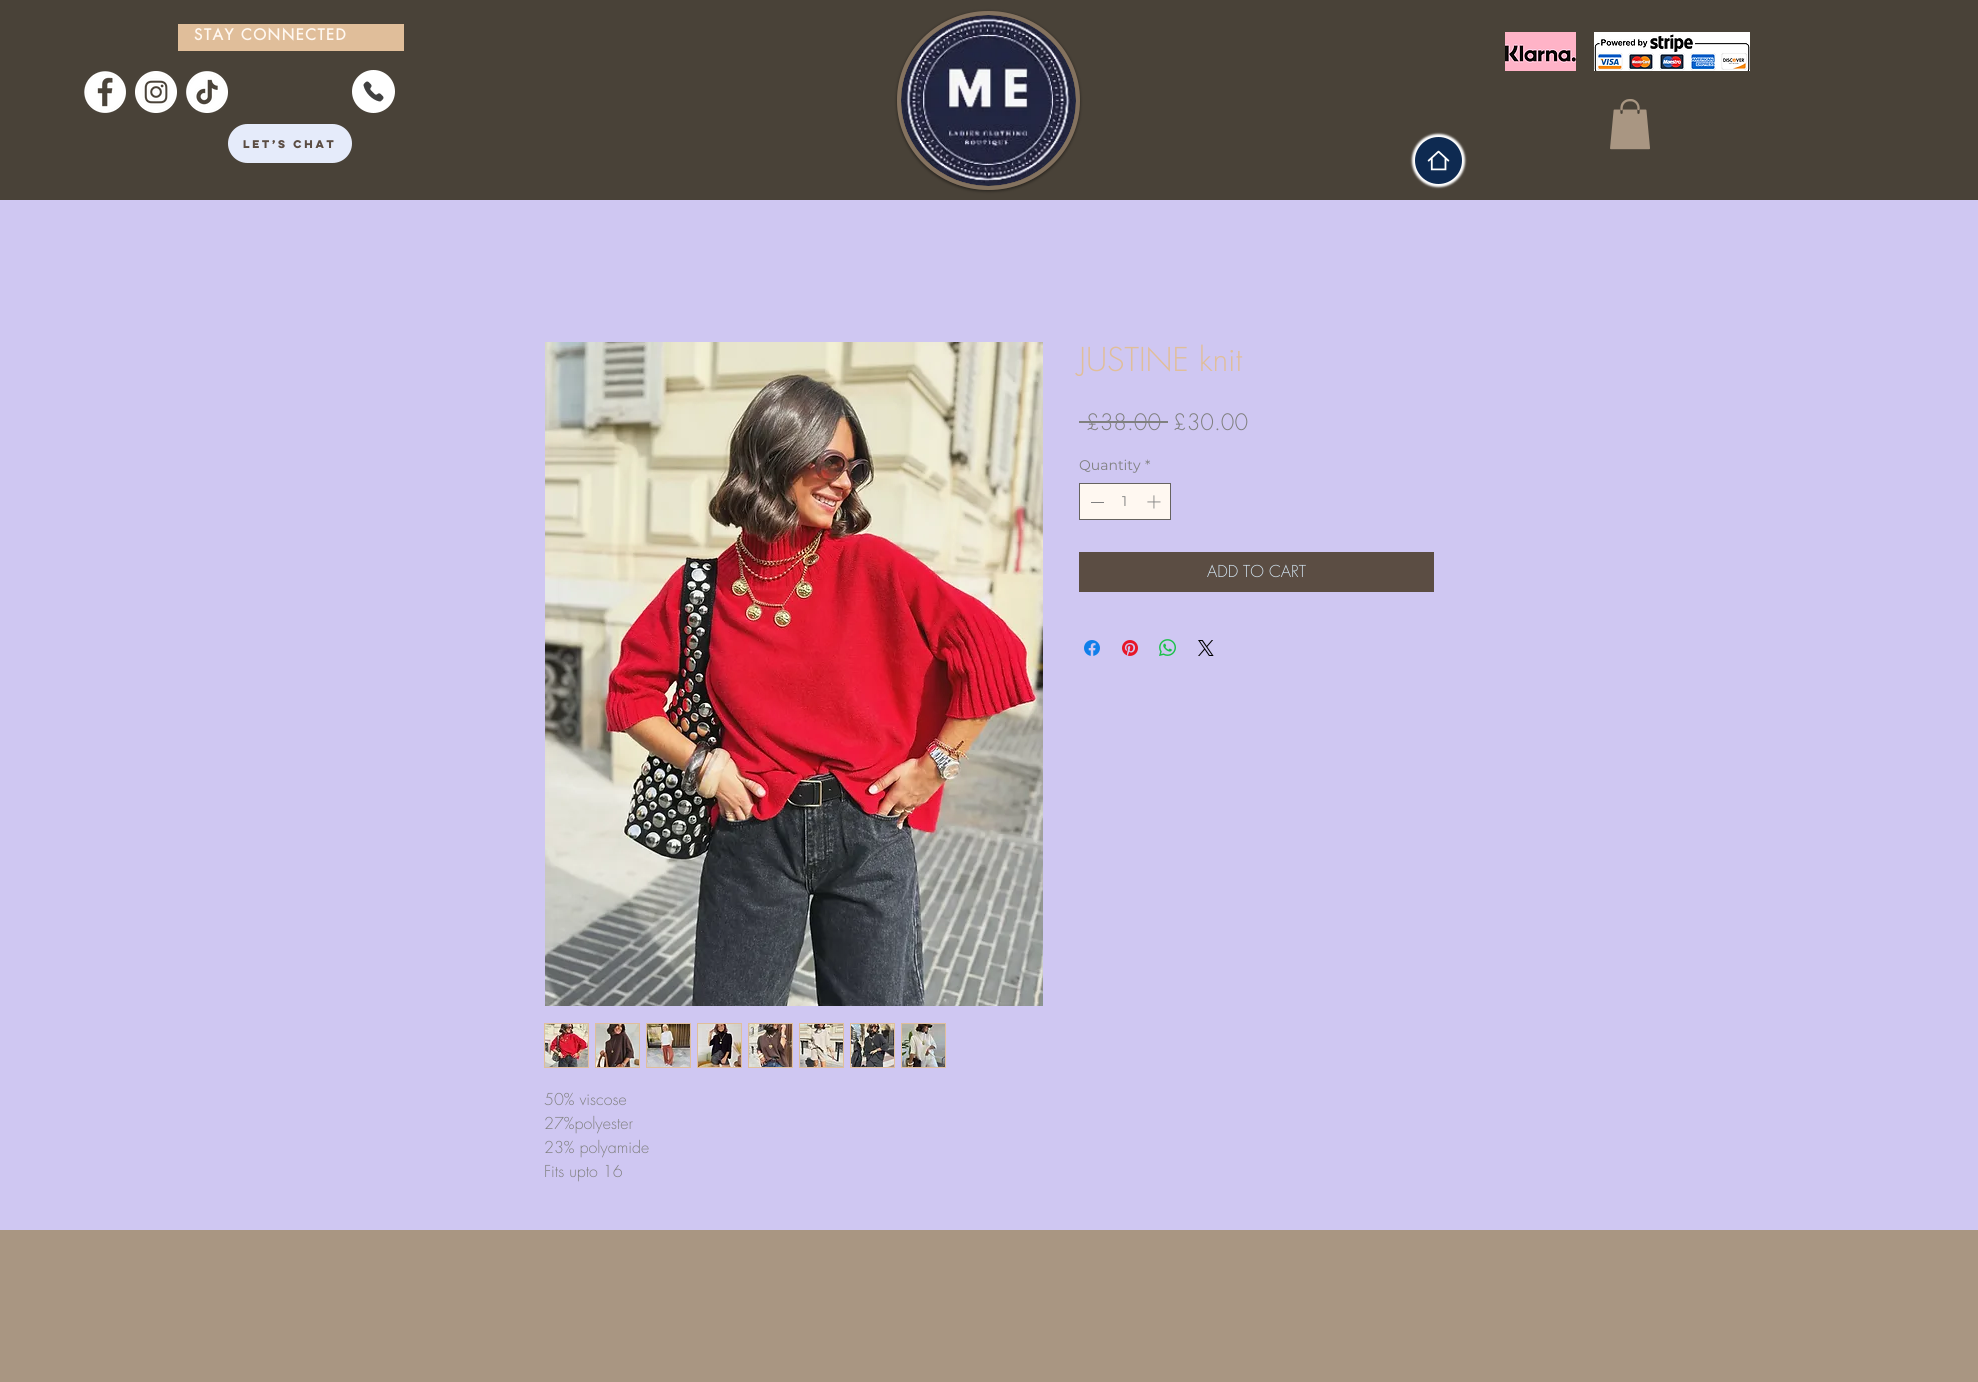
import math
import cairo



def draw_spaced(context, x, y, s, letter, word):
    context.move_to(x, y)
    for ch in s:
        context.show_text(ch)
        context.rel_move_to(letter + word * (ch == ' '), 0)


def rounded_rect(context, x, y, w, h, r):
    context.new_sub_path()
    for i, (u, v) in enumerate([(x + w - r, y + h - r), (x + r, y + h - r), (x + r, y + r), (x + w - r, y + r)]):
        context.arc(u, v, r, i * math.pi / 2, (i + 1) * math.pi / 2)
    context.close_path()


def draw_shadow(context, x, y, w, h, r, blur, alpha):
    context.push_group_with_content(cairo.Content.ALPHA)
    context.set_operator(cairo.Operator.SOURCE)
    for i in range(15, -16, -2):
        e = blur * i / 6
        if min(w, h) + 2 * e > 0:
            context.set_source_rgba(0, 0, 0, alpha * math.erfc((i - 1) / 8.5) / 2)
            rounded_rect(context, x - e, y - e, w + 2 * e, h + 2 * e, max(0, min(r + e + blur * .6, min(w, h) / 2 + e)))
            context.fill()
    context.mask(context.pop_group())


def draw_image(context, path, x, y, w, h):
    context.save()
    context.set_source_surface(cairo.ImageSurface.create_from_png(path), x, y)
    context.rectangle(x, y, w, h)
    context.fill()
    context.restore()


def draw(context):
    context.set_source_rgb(207 / 255, 199 / 255, 242 / 255)
    context.paint()
    context.set_source_rgb(73 / 255, 66 / 255, 56 / 255)
    context.rectangle(0, 0, 1978, 200)
    context.fill()
    draw_image(context, "images/1.png", 84, 71, 42, 42)
    draw_image(context, "images/2.png", 135, 71, 42, 42)
    draw_image(context, "images/3.png", 186, 71, 42, 42)
    context.set_source_rgb(224 / 255, 190 / 255, 154 / 255)
    context.rectangle(178, 24, 226, 27)
    context.fill()
    context.save()
    context.set_fill_rule(cairo.FillRule.EVEN_ODD)
    context.new_path()
    context.move_to(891, 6)
    context.line_to(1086, 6)
    context.line_to(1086, 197)
    context.line_to(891, 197)
    context.close_path()
    context.move_to(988.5, 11)
    context.curve_to(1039, 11, 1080, 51, 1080, 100.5)
    context.curve_to(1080, 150, 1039, 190, 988.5, 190)
    context.curve_to(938, 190, 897, 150, 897, 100.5)
    context.curve_to(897, 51, 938, 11, 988.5, 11)
    context.close_path()
    context.clip()
    context.set_source_rgb(0, 0, 0)
    draw_shadow(context, 897, 12, 183, 179, 89.5, 1.5, 0.5)
    context.restore()
    context.set_source_rgba(224 / 255, 190 / 255, 154 / 255, 0.22)
    context.new_path()
    context.move_to(988.5, 11)
    context.curve_to(1039, 11, 1080, 51, 1080, 100.5)
    context.curve_to(1080, 150, 1039, 190, 988.5, 190)
    context.curve_to(938, 190, 897, 150, 897, 100.5)
    context.curve_to(897, 51, 938, 11, 988.5, 11)
    context.close_path()
    context.fill()
    context.new_path()
    context.move_to(988.5, 13)
    context.curve_to(1038, 13, 1078, 52, 1078, 100.5)
    context.curve_to(1078, 149, 1038, 188, 988.5, 188)
    context.curve_to(939, 188, 899, 149, 899, 100.5)
    context.curve_to(899, 52, 939, 13, 988.5, 13)
    context.close_path()
    context.set_line_width(4)
    context.stroke()
    draw_image(context, "images/4.png", 901, 15, 175, 171)
    draw_image(context, "images/5.png", 1505, 32, 71, 39)
    draw_image(context, "images/6.png", 1594, 32, 156, 39)
    context.set_source_rgb(1, 1, 1)
    context.arc(373.5, 91.5, 21.5, 0, 2 * math.pi)
    context.fill()
    draw_image(context, "images/7.png", 363, 81, 21, 21)
    draw_image(context, "images/8.png", 1610, 99, 40, 51)
    context.set_source_rgb(229 / 255, 235 / 255, 250 / 255)
    rounded_rect(context, 228, 124, 124, 39, 19.5)
    context.fill()
    context.set_source_rgb(1, 1, 1)
    draw_shadow(context, 1412, 134, 53, 53, 26.5, 1, 1)
    context.set_source_rgb(14 / 255, 42 / 255, 81 / 255)
    context.arc(1438.5, 160.5, 23.5, 0, 2 * math.pi)
    context.fill()
    draw_image(context, "images/9.png", 1427, 150, 23, 21)
    context.set_source_rgb(128 / 255, 128 / 255, 128 / 255)
    context.rectangle(1079, 421, 89, 2)
    context.fill()
    context.set_source_rgb(1, 248 / 255, 241 / 255)
    context.rectangle(1079.5, 483.5, 91, 36)
    context.fill_preserve()
    context.set_source_rgb(102 / 255, 99 / 255, 96 / 255)
    context.set_line_width(1)
    context.stroke()
    context.set_source_rgb(128 / 255, 128 / 255, 128 / 255)
    context.rectangle(1091, 502, 13, 1)
    context.fill()
    draw_image(context, "images/10.png", 1147, 495, 14, 14)
    context.set_source_rgb(91 / 255, 77 / 255, 67 / 255)
    context.rectangle(1079, 552, 355, 40)
    context.fill()
    draw_image(context, "images/11.png", 1084, 640, 16, 16)
    draw_image(context, "images/12.png", 1122, 640, 16, 16)
    draw_image(context, "images/13.png", 1159, 639, 17, 17)
    draw_image(context, "images/14.png", 1198, 640, 16, 16)
    draw_image(context, "images/15.png", 545, 342, 498, 664)
    context.set_source_rgb(224 / 255, 190 / 255, 154 / 255)
    context.rectangle(544, 1023, 45, 45)
    context.fill()
    draw_image(context, "images/16.png", 545, 1024, 43, 43)
    context.rectangle(595, 1023, 45, 45)
    context.fill()
    draw_image(context, "images/17.png", 596, 1024, 43, 43)
    context.rectangle(646, 1023, 45, 45)
    context.fill()
    draw_image(context, "images/18.png", 647, 1024, 43, 43)
    context.rectangle(697, 1023, 45, 45)
    context.fill()
    draw_image(context, "images/19.png", 698, 1024, 43, 43)
    context.rectangle(748, 1023, 45, 45)
    context.fill()
    draw_image(context, "images/20.png", 749, 1024, 43, 43)
    context.rectangle(799, 1023, 45, 45)
    context.fill()
    draw_image(context, "images/21.png", 800, 1024, 43, 43)
    context.rectangle(850, 1023, 45, 45)
    context.fill()
    draw_image(context, "images/22.png", 851, 1024, 43, 43)
    context.rectangle(901, 1023, 45, 45)
    context.fill()
    draw_image(context, "images/23.png", 902, 1024, 43, 43)
    context.set_source_rgb(169 / 255, 150 / 255, 130 / 255)
    context.rectangle(0, 1230, 1978, 152)
    context.fill()
    context.select_font_face("futura", cairo.FontSlant.NORMAL, cairo.FontWeight.BOLD)
    context.set_font_size(15)
    context.set_source_rgb(1, 248 / 255, 241 / 255)
    draw_spaced(context, 194, 40, "STAY CONNECTED", 1.5, 0)
    context.select_font_face("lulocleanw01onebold", cairo.FontSlant.NORMAL, cairo.FontWeight.BOLD)
    context.set_font_size(10)
    context.set_source_rgb(91 / 255, 77 / 255, 67 / 255)
    draw_spaced(context, 243, 148, "Let’s chat", 0.5, 0)
    context.select_font_face("futura Light")
    context.set_font_size(32)
    context.set_source_rgb(224 / 255, 190 / 255, 154 / 255)
    context.move_to(1079, 371)
    context.show_text("JUSTINE knit")
    context.set_font_size(22)
    context.set_source_rgb(128 / 255, 128 / 255, 128 / 255)
    context.move_to(1086, 430)
    context.show_text("£38.00")
    context.move_to(1173, 430)
    context.show_text("£30.00")
    context.select_font_face("Montserrat")
    context.set_font_size(14)
    context.move_to(1079, 470)
    context.show_text("Quantity")
    context.move_to(1145, 470)
    context.show_text("*")
    context.move_to(1122, 506)
    context.show_text("1")
    context.select_font_face("futura Light")
    context.set_font_size(16)
    context.set_source_rgb(209 / 255, 227 / 255, 240 / 255)
    context.move_to(1207, 577)
    context.show_text("ADD TO CART")
    context.set_source_rgb(128 / 255, 128 / 255, 128 / 255)
    context.move_to(544, 1105)
    context.show_text("50% viscose")
    context.move_to(544, 1129)
    context.show_text("27%polyester")
    context.move_to(544, 1153)
    context.show_text("23% polyamide")
    context.move_to(544, 1177)
    context.show_text("Fits upto 16")


surface = cairo.ImageSurface(cairo.Format.RGB24, 1978, 1382)
context = cairo.Context(surface)
options = cairo.FontOptions()
options.set_hint_metrics(cairo.HintMetrics.OFF)
options.set_hint_style(cairo.HintStyle.NONE)
context.set_font_options(options)
context.set_miter_limit(4)
draw(context)
surface.write_to_png("out.png")
